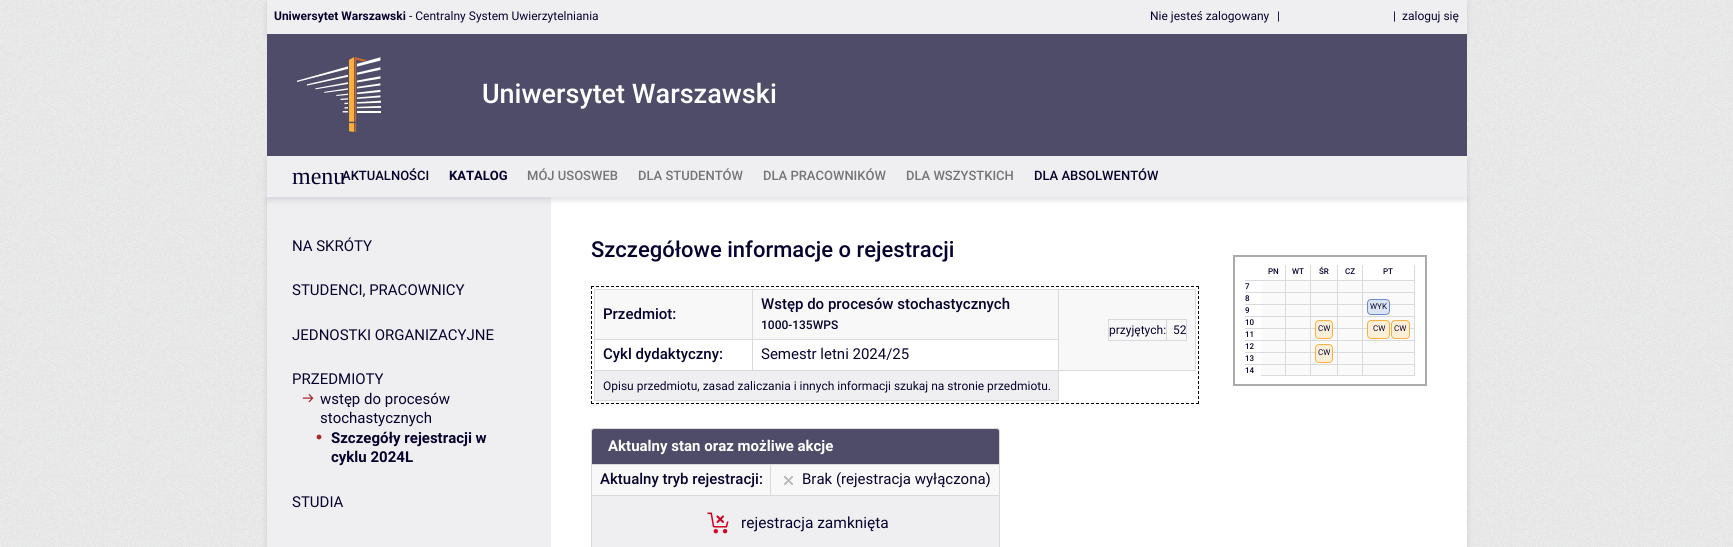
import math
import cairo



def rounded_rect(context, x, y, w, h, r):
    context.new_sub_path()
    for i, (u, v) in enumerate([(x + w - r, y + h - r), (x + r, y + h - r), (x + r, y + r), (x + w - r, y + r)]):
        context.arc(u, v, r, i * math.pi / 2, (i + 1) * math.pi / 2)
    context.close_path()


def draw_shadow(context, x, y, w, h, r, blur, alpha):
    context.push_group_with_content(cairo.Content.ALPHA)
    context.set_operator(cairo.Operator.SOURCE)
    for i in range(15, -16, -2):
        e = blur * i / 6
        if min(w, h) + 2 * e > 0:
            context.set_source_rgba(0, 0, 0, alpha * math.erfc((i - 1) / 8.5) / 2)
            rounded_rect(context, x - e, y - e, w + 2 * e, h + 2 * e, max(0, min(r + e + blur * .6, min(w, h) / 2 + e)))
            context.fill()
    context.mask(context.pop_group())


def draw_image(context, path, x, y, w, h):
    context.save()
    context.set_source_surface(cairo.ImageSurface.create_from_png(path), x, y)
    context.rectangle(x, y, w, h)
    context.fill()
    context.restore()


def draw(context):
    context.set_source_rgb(1, 1, 1)
    context.paint()
    draw_image(context, "images/1.png", 0, 0, 1733, 547)
    context.set_source_rgb(6 / 255, 6 / 255, 51 / 255)
    draw_shadow(context, 267, 3, 1200, 34, 0, 3, 0.12)
    context.set_source_rgb(239 / 255, 239 / 255, 241 / 255)
    context.rectangle(267, 0, 1200, 34)
    context.fill()
    context.set_source_rgb(79 / 255, 76 / 255, 106 / 255)
    context.rectangle(267, 34, 1200, 122)
    context.fill()
    draw_image(context, "images/2.png", 297, 57, 84, 75)
    context.set_source_rgb(6 / 255, 6 / 255, 51 / 255)
    draw_shadow(context, 267, 200, 1200, 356, 0, 3, 0.12)
    context.set_source_rgb(1, 1, 1)
    context.rectangle(551, 197, 916, 350)
    context.fill()
    context.set_source_rgb(239 / 255, 239 / 255, 241 / 255)
    context.rectangle(267, 197, 284, 350)
    context.fill()
    context.set_source_rgb(6 / 255, 6 / 255, 51 / 255)
    draw_shadow(context, 267, 159, 1200, 41, 0, 3, 0.12)
    context.set_source_rgb(239 / 255, 239 / 255, 241 / 255)
    context.rectangle(267, 156, 1200, 41)
    context.fill()
    draw_image(context, "images/3.png", 302, 394, 12, 9)
    context.set_source_rgb(166 / 255, 41 / 255, 41 / 255)
    context.arc(319, 437, 2.4, 0, 2 * math.pi)
    context.fill()
    context.new_path()
    context.move_to(591, 286.5)
    context.line_to(1199, 286.5)
    context.set_source_rgb(0, 0, 0)
    context.set_line_width(1)
    context.set_dash([3, 2])
    context.stroke()
    context.new_path()
    context.move_to(1198.5, 286)
    context.line_to(1198.5, 404)
    context.stroke()
    context.new_path()
    context.move_to(591, 403.5)
    context.line_to(1199, 403.5)
    context.stroke()
    context.new_path()
    context.move_to(591.5, 286)
    context.line_to(591.5, 404)
    context.stroke()
    context.set_source_rgb(248 / 255, 248 / 255, 248 / 255)
    context.rectangle(595, 290, 157, 49)
    context.fill()
    context.set_source_rgb(218 / 255, 218 / 255, 222 / 255)
    context.rectangle(1058, 289, 138, 1)
    context.fill()
    context.rectangle(1195, 289, 1, 82)
    context.fill()
    context.rectangle(594, 370, 465, 1)
    context.fill()
    context.rectangle(1058, 370, 1, 31)
    context.fill()
    context.rectangle(1058, 370, 138, 1)
    context.fill()
    context.rectangle(752, 339, 307, 1)
    context.fill()
    context.rectangle(1058, 289, 1, 82)
    context.fill()
    context.rectangle(752, 289, 307, 1)
    context.fill()
    context.rectangle(752, 339, 1, 32)
    context.fill()
    context.rectangle(594, 339, 159, 1)
    context.fill()
    context.rectangle(752, 289, 1, 51)
    context.fill()
    context.rectangle(594, 289, 159, 1)
    context.fill()
    context.rectangle(594, 400, 465, 1)
    context.fill()
    context.rectangle(594, 370, 1, 31)
    context.fill()
    context.rectangle(594, 339, 1, 32)
    context.fill()
    context.rectangle(594, 289, 1, 51)
    context.fill()
    context.set_source_rgb(248 / 255, 248 / 255, 248 / 255)
    context.rectangle(753, 290, 305, 49)
    context.fill()
    context.rectangle(1059, 290, 136, 80)
    context.fill()
    context.set_source_rgb(218 / 255, 218 / 255, 222 / 255)
    context.rectangle(1166, 319, 21, 1)
    context.fill()
    context.rectangle(1186, 319, 1, 22)
    context.fill()
    context.rectangle(1166, 340, 21, 1)
    context.fill()
    context.rectangle(1166, 319, 1, 22)
    context.fill()
    context.rectangle(1108, 319, 59, 1)
    context.fill()
    context.rectangle(1108, 340, 59, 1)
    context.fill()
    context.rectangle(1108, 319, 1, 22)
    context.fill()
    context.set_source_rgb(239 / 255, 239 / 255, 241 / 255)
    context.rectangle(595, 371, 463, 29)
    context.fill()
    context.rectangle(1234, 256, 192, 129)
    context.set_source_rgb(170 / 255, 170 / 255, 170 / 255)
    context.set_line_width(2)
    context.set_dash([])
    context.stroke()
    context.set_source_rgb(218 / 255, 218 / 255, 222 / 255)
    context.rectangle(1285, 265, 1, 111)
    context.fill()
    context.rectangle(1310, 265, 1, 111)
    context.fill()
    context.rectangle(1337, 265, 1, 111)
    context.fill()
    context.rectangle(1362, 265, 1, 111)
    context.fill()
    context.rectangle(1414, 265, 1, 111)
    context.fill()
    context.rectangle(1245, 280, 170, 1)
    context.fill()
    context.set_source_rgb(250 / 255, 250 / 255, 250 / 255)
    context.rectangle(1261, 281, 24, 94)
    context.fill()
    context.rectangle(1286, 281, 24, 94)
    context.fill()
    context.rectangle(1311, 281, 26, 94)
    context.fill()
    context.rectangle(1338, 281, 24, 94)
    context.fill()
    context.rectangle(1363, 281, 51, 94)
    context.fill()
    context.set_source_rgb(218 / 255, 218 / 255, 222 / 255)
    context.rectangle(1245, 292, 170, 1)
    context.fill()
    context.rectangle(1245, 304, 170, 1)
    context.fill()
    context.rectangle(1245, 316, 170, 1)
    context.fill()
    context.rectangle(1245, 328, 170, 1)
    context.fill()
    context.rectangle(1245, 340, 170, 1)
    context.fill()
    context.rectangle(1245, 352, 170, 1)
    context.fill()
    context.rectangle(1245, 364, 170, 1)
    context.fill()
    context.rectangle(1261, 375, 24, 1)
    context.fill()
    context.rectangle(1286, 375, 24, 1)
    context.fill()
    context.rectangle(1311, 375, 26, 1)
    context.fill()
    context.set_source_rgb(254 / 255, 239 / 255, 217 / 255)
    rounded_rect(context, 1315.5, 320.5, 17, 18, 3.5)
    context.fill_preserve()
    context.set_source_rgb(250 / 255, 177 / 255, 66 / 255)
    context.set_line_width(1)
    context.stroke()
    context.set_source_rgb(254 / 255, 239 / 255, 217 / 255)
    rounded_rect(context, 1315.5, 344.5, 17, 18, 3.5)
    context.fill_preserve()
    context.set_source_rgb(250 / 255, 177 / 255, 66 / 255)
    context.stroke()
    context.set_source_rgb(218 / 255, 218 / 255, 222 / 255)
    context.rectangle(1338, 375, 24, 1)
    context.fill()
    context.rectangle(1363, 375, 51, 1)
    context.fill()
    context.set_source_rgb(219 / 255, 228 / 255, 243 / 255)
    rounded_rect(context, 1367.5, 299.5, 22, 15, 3.5)
    context.fill_preserve()
    context.set_source_rgb(106 / 255, 142 / 255, 205 / 255)
    context.stroke()
    context.set_source_rgb(254 / 255, 239 / 255, 217 / 255)
    rounded_rect(context, 1367.5, 320.5, 22, 18, 3.5)
    context.fill_preserve()
    context.set_source_rgb(250 / 255, 177 / 255, 66 / 255)
    context.stroke()
    context.set_source_rgb(254 / 255, 239 / 255, 217 / 255)
    rounded_rect(context, 1391.5, 320.5, 18, 18, 3.5)
    context.fill_preserve()
    context.set_source_rgb(250 / 255, 177 / 255, 66 / 255)
    context.stroke()
    context.new_path()
    context.move_to(594, 428.5)
    context.line_to(997, 428.5)
    context.curve_to(998.5, 428.5, 999.5, 429.5, 999.5, 431)
    context.line_to(999.5, 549)
    context.curve_to(999.5, 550, 999, 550.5, 998, 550.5)
    context.line_to(593, 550.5)
    context.curve_to(592, 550.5, 591.5, 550, 591.5, 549)
    context.line_to(591.5, 431)
    context.curve_to(591.5, 429.5, 592.5, 428.5, 594, 428.5)
    context.close_path()
    context.set_source_rgb(218 / 255, 218 / 255, 222 / 255)
    context.stroke()
    context.set_source_rgb(79 / 255, 76 / 255, 106 / 255)
    context.new_path()
    context.move_to(594, 429)
    context.line_to(997, 429)
    context.curve_to(998, 429, 999, 430, 999, 431)
    context.line_to(999, 465)
    context.line_to(592, 465)
    context.line_to(592, 431)
    context.curve_to(592, 430, 593, 429, 594, 429)
    context.close_path()
    context.fill()
    context.set_source_rgb(248 / 255, 248 / 255, 248 / 255)
    context.rectangle(592, 465, 178, 30)
    context.fill()
    context.set_source_rgb(218 / 255, 218 / 255, 222 / 255)
    context.rectangle(770, 464, 230, 1)
    context.fill()
    context.rectangle(770, 464, 1, 32)
    context.fill()
    context.rectangle(591, 464, 180, 1)
    context.fill()
    context.set_source_rgb(248 / 255, 248 / 255, 248 / 255)
    context.rectangle(771, 465, 228, 30)
    context.fill()
    draw_image(context, "images/4.png", 784, 476, 9, 9)
    context.set_source_rgb(239 / 255, 239 / 255, 241 / 255)
    context.rectangle(592, 496, 407, 51)
    context.fill()
    context.set_source_rgb(218 / 255, 218 / 255, 222 / 255)
    context.rectangle(592, 495, 407, 1)
    context.fill()
    draw_image(context, "images/5.png", 707, 512, 22, 22)
    context.select_font_face("Roboto", cairo.FontSlant.NORMAL, cairo.FontWeight.BOLD)
    context.set_font_size(12)
    context.set_source_rgb(6 / 255, 2 / 255, 46 / 255)
    context.move_to(274, 20)
    context.show_text("Uniwersytet Warszawski")
    context.select_font_face("Roboto")
    context.move_to(409, 20)
    context.show_text("- Centralny System Uwierzytelniania")
    context.move_to(1150, 20)
    context.show_text("Nie jesteś zalogowany")
    context.move_to(1277, 20)
    context.show_text("|")
    context.move_to(1393, 20)
    context.show_text("|")
    context.move_to(1402, 20)
    context.show_text("zaloguj się")
    context.select_font_face("Roboto Medium")
    context.set_font_size(27)
    context.set_source_rgb(1, 1, 1)
    context.move_to(482, 103)
    context.show_text("Uniwersytet Warszawski")
    context.select_font_face("Liberation Serif")
    context.set_font_size(24)
    context.set_source_rgb(6 / 255, 2 / 255, 46 / 255)
    context.move_to(292, 184)
    context.show_text("menu")
    context.select_font_face("Roboto Medium")
    context.set_font_size(13)
    context.move_to(342, 180)
    context.show_text("AKTUALNOŚCI")
    context.select_font_face("Roboto", cairo.FontSlant.NORMAL, cairo.FontWeight.BOLD)
    context.move_to(449, 180)
    context.show_text("KATALOG")
    context.select_font_face("Roboto Medium")
    context.set_source_rgb(117 / 255, 117 / 255, 117 / 255)
    context.move_to(527, 180)
    context.show_text("MÓJ USOSWEB")
    context.move_to(638, 180)
    context.show_text("DLA STUDENTÓW")
    context.move_to(763, 180)
    context.show_text("DLA PRACOWNIKÓW")
    context.move_to(906, 180)
    context.show_text("DLA WSZYSTKICH")
    context.set_source_rgb(6 / 255, 2 / 255, 46 / 255)
    context.move_to(1034, 180)
    context.show_text("DLA ABSOLWENTÓW")
    context.select_font_face("Roboto")
    context.set_font_size(15)
    context.move_to(292, 251)
    context.show_text("NA SKRÓTY")
    context.move_to(292, 295)
    context.show_text("STUDENCI, PRACOWNICY")
    context.move_to(292, 340)
    context.show_text("JEDNOSTKI ORGANIZACYJNE")
    context.move_to(292, 384)
    context.show_text("PRZEDMIOTY")
    context.move_to(320, 404)
    context.show_text("wstęp do procesów")
    context.move_to(320, 423)
    context.show_text("stochastycznych")
    context.select_font_face("Roboto", cairo.FontSlant.NORMAL, cairo.FontWeight.BOLD)
    context.move_to(331, 443)
    context.show_text("Szczegóły rejestracji w")
    context.move_to(331, 462)
    context.show_text("cyklu 2024L")
    context.select_font_face("Roboto")
    context.move_to(292, 507)
    context.show_text("STUDIA")
    context.select_font_face("Roboto Medium")
    context.set_font_size(22)
    context.move_to(591, 257)
    context.show_text("Szczegółowe informacje o rejestracji")
    context.set_font_size(15)
    context.move_to(603, 319)
    context.show_text("Przedmiot:")
    context.move_to(761, 309)
    context.show_text("Wstęp do procesów stochastycznych")
    context.set_font_size(12)
    context.move_to(761, 329)
    context.show_text("1000-135WPS")
    context.select_font_face("Roboto")
    context.move_to(1109, 334)
    context.show_text("przyjętych:")
    context.move_to(1173, 334)
    context.show_text("52")
    context.select_font_face("Roboto Medium")
    context.set_font_size(15)
    context.move_to(603, 359)
    context.show_text("Cykl dydaktyczny:")
    context.select_font_face("Roboto")
    context.move_to(761, 359)
    context.show_text("Semestr letni 2024/25")
    context.set_font_size(12)
    context.move_to(603, 390)
    context.show_text("Opisu przedmiotu, zasad zaliczania i innych informacji szukaj na stronie przedmiotu.")
    context.select_font_face("Roboto Medium")
    context.set_font_size(8)
    context.move_to(1245, 289)
    context.show_text("7")
    context.move_to(1245, 301)
    context.show_text("8")
    context.move_to(1245, 313)
    context.show_text("9")
    context.move_to(1245, 325)
    context.show_text("10")
    context.move_to(1245, 337)
    context.show_text("11")
    context.move_to(1245, 349)
    context.show_text("12")
    context.move_to(1245, 361)
    context.show_text("13")
    context.move_to(1245, 373)
    context.show_text("14")
    context.move_to(1268, 274)
    context.show_text("PN")
    context.move_to(1292, 274)
    context.show_text("WT")
    context.move_to(1319, 274)
    context.show_text("ŚR")
    context.select_font_face("Roboto")
    context.move_to(1318, 331)
    context.show_text("CW")
    context.move_to(1318, 355)
    context.show_text("CW")
    context.select_font_face("Roboto Medium")
    context.move_to(1345, 274)
    context.show_text("CZ")
    context.move_to(1383, 274)
    context.show_text("PT")
    context.select_font_face("Roboto")
    context.move_to(1370, 309)
    context.show_text("WYK")
    context.move_to(1373, 331)
    context.show_text("CW")
    context.move_to(1394, 331)
    context.show_text("CW")
    context.select_font_face("Roboto", cairo.FontSlant.NORMAL, cairo.FontWeight.BOLD)
    context.set_font_size(15)
    context.set_source_rgb(1, 1, 1)
    context.move_to(608, 451)
    context.show_text("Aktualny stan oraz możliwe akcje")
    context.select_font_face("Roboto Medium")
    context.set_source_rgb(6 / 255, 2 / 255, 46 / 255)
    context.move_to(600, 484)
    context.show_text("Aktualny tryb rejestracji:")
    context.select_font_face("Roboto")
    context.move_to(802, 484)
    context.show_text("Brak (rejestracja wyłączona)")
    context.set_font_size(15.5)
    context.move_to(741, 528)
    context.show_text("rejestracja zamknięta")


surface = cairo.ImageSurface(cairo.Format.RGB24, 1733, 547)
context = cairo.Context(surface)
options = cairo.FontOptions()
options.set_hint_metrics(cairo.HintMetrics.OFF)
options.set_hint_style(cairo.HintStyle.NONE)
context.set_font_options(options)
context.set_miter_limit(4)
draw(context)
surface.write_to_png("out.png")
